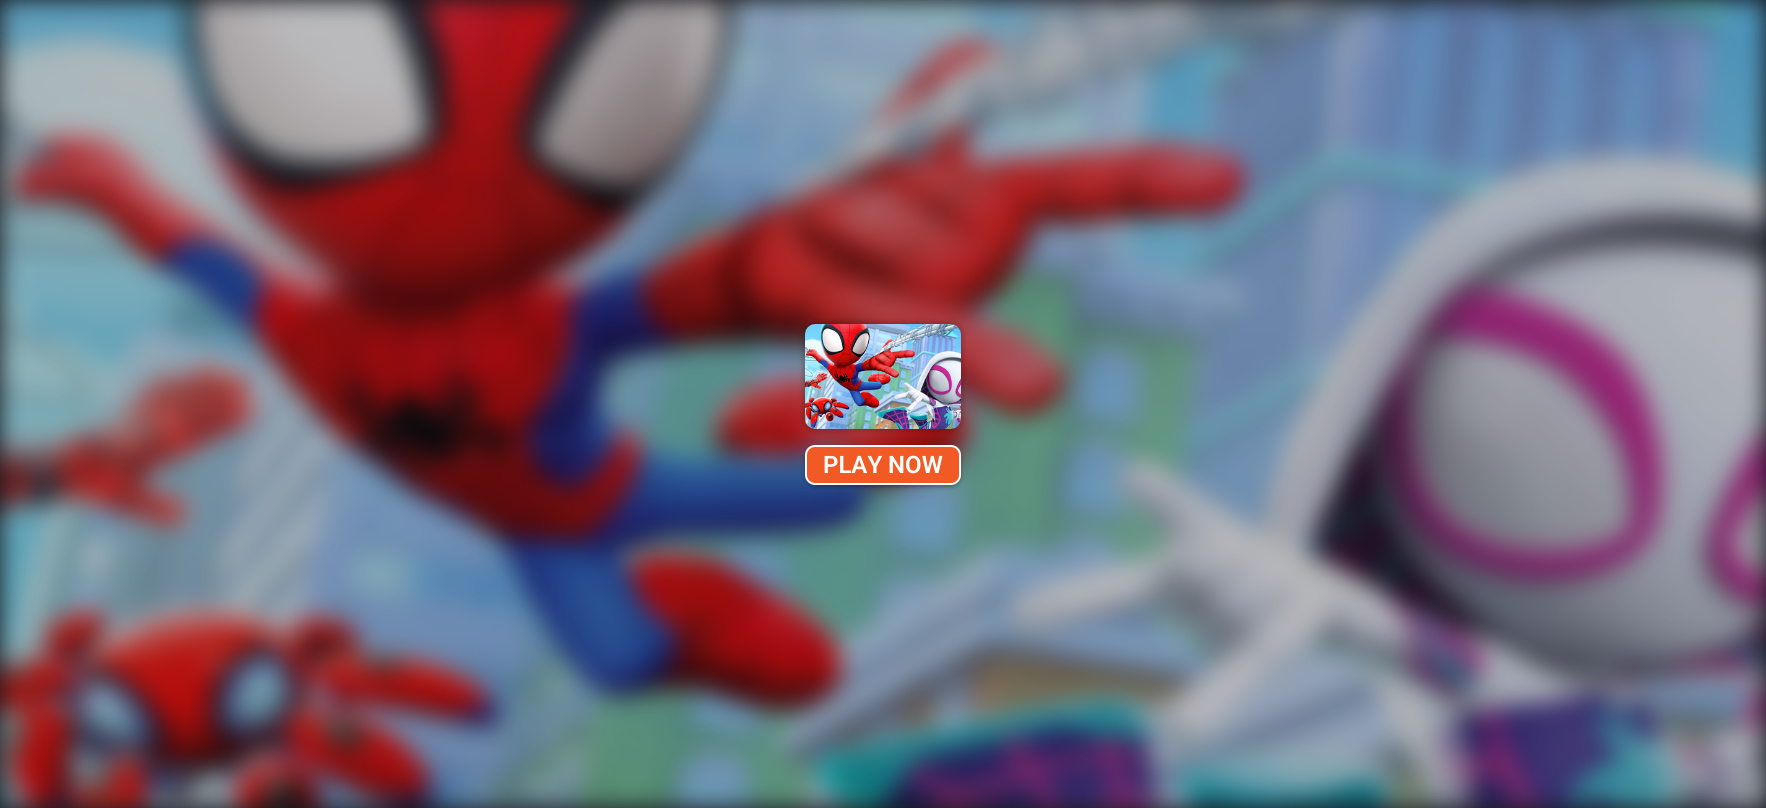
import math
import cairo



def rounded_rect(context, x, y, w, h, r):
    context.new_sub_path()
    for i, (u, v) in enumerate([(x + w - r, y + h - r), (x + r, y + h - r), (x + r, y + r), (x + w - r, y + r)]):
        context.arc(u, v, r, i * math.pi / 2, (i + 1) * math.pi / 2)
    context.close_path()


def draw_shadow(context, x, y, w, h, r, blur, alpha):
    context.push_group_with_content(cairo.Content.ALPHA)
    context.set_operator(cairo.Operator.SOURCE)
    for i in range(15, -16, -2):
        e = blur * i / 6
        if min(w, h) + 2 * e > 0:
            context.set_source_rgba(0, 0, 0, alpha * math.erfc((i - 1) / 8.5) / 2)
            rounded_rect(context, x - e, y - e, w + 2 * e, h + 2 * e, max(0, min(r + e + blur * .6, min(w, h) / 2 + e)))
            context.fill()
    context.mask(context.pop_group())


def draw_image(context, path, x, y, w, h):
    context.save()
    context.set_source_surface(cairo.ImageSurface.create_from_png(path), x, y)
    context.rectangle(x, y, w, h)
    context.fill()
    context.restore()


def draw(context):
    context.set_source_rgb(22 / 255, 24 / 255, 30 / 255)
    context.paint()
    draw_image(context, "images/1.png", 0, 0, 1766, 808)
    context.set_source_rgb(0, 0, 0)
    draw_shadow(context, 803, 322, 160, 109, 12, 2.5, 0.2)
    draw_image(context, "images/2.png", 805, 324, 156, 105)
    draw_shadow(context, 805, 447, 156, 40, 10, 2, 0.3)
    context.set_source_rgb(241 / 255, 90 / 255, 36 / 255)
    rounded_rect(context, 806, 446, 154, 38, 9)
    context.fill_preserve()
    context.set_source_rgb(1, 1, 1)
    context.stroke()
    context.select_font_face("Roboto SemiBold")
    context.set_font_size(24)
    context.move_to(823, 473)
    context.show_text("PLAY NOW")


surface = cairo.ImageSurface(cairo.Format.RGB24, 1766, 808)
context = cairo.Context(surface)
options = cairo.FontOptions()
options.set_hint_metrics(cairo.HintMetrics.OFF)
options.set_hint_style(cairo.HintStyle.NONE)
context.set_font_options(options)
context.set_miter_limit(4)
draw(context)
surface.write_to_png("out.png")
